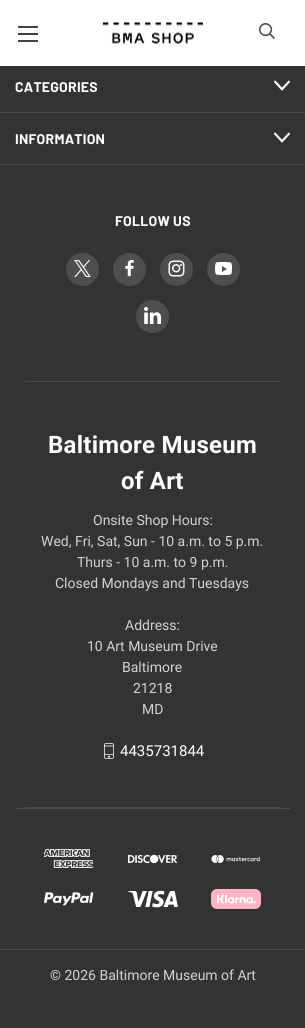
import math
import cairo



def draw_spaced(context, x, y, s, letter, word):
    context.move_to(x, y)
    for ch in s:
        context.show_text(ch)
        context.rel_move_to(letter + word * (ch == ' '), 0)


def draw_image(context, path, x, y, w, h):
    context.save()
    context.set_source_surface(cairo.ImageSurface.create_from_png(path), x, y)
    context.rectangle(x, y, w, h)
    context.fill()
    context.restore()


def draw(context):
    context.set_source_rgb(51 / 255, 51 / 255, 51 / 255)
    context.paint()
    context.set_source_rgb(1, 1, 1)
    context.rectangle(0, 0, 305, 66)
    context.fill()
    draw_image(context, "images/1.png", 103, 22, 100, 22)
    draw_image(context, "images/2.png", 259, 23, 16, 16)
    context.set_source_rgb(66 / 255, 66 / 255, 66 / 255)
    context.rectangle(18, 33, 20, 2)
    context.fill()
    context.rectangle(18, 26, 20, 2)
    context.fill()
    context.rectangle(18, 40, 20, 2)
    context.fill()
    context.set_source_rgb(74 / 255, 74 / 255, 74 / 255)
    context.rectangle(0, 112, 305, 1)
    context.fill()
    draw_image(context, "images/3.png", 274, 80, 16, 11)
    context.rectangle(0, 164, 305, 1)
    context.fill()
    draw_image(context, "images/3.png", 274, 132, 16, 11)
    context.rectangle(25, 381, 255, 1)
    context.fill()
    context.set_source_rgb(78 / 255, 78 / 255, 78 / 255)
    context.arc(82.5, 269.5, 16.5, 0, 2 * math.pi)
    context.fill()
    draw_image(context, "images/4.png", 74, 260, 17, 17)
    context.arc(129.5, 269.5, 16.5, 0, 2 * math.pi)
    context.fill()
    draw_image(context, "images/5.png", 125, 260, 9, 17)
    context.arc(176.5, 269.5, 16.5, 0, 2 * math.pi)
    context.fill()
    draw_image(context, "images/6.png", 168, 260, 17, 17)
    context.arc(223.5, 269.5, 16.5, 0, 2 * math.pi)
    context.fill()
    draw_image(context, "images/7.png", 215, 262, 17, 13)
    context.arc(152.5, 316.5, 16.5, 0, 2 * math.pi)
    context.fill()
    draw_image(context, "images/8.png", 144, 307, 17, 17)
    context.set_source_rgb(74 / 255, 74 / 255, 74 / 255)
    context.rectangle(25, 807, 255, 1)
    context.fill()
    draw_image(context, "images/9.png", 104, 743, 10, 16)
    context.set_source_rgb(78 / 255, 78 / 255, 78 / 255)
    context.rectangle(15, 808, 275, 1)
    context.fill()
    context.set_source_rgb(74 / 255, 74 / 255, 74 / 255)
    context.rectangle(0, 949, 305, 1)
    context.fill()
    draw_image(context, "images/10.png", 44, 849, 50, 19)
    draw_image(context, "images/11.png", 128, 854, 50, 10)
    draw_image(context, "images/12.png", 211, 855, 50, 8)
    draw_image(context, "images/13.png", 44, 892, 50, 14)
    draw_image(context, "images/14.png", 128, 890, 50, 18)
    draw_image(context, "images/15.png", 211, 889, 50, 20)
    context.select_font_face("Barlow", cairo.FontSlant.NORMAL, cairo.FontWeight.BOLD)
    context.set_font_size(14)
    context.set_source_rgb(1, 1, 1)
    draw_spaced(context, 15, 92, "CATEGORIES", 0.25, 0)
    draw_spaced(context, 15, 144, "INFORMATION", 0.25, 0)
    draw_spaced(context, 115, 226, "FOLLOW US", 0.25, 0)
    context.select_font_face("Roboto", cairo.FontSlant.NORMAL, cairo.FontWeight.BOLD)
    context.set_font_size(24)
    draw_spaced(context, 48, 453, "Baltimore Museum", 0.25, 0)
    draw_spaced(context, 121, 489, "of Art", 0.25, 0)
    context.select_font_face("Roboto")
    context.set_font_size(14)
    context.set_source_rgb(210 / 255, 210 / 255, 210 / 255)
    context.move_to(93, 525)
    context.show_text("Onsite Shop Hours:")
    context.move_to(41, 546)
    context.show_text("Wed, Fri, Sat, Sun - 10 a.m. to 5 p.m.")
    context.move_to(77, 567)
    context.show_text("Thurs - 10 a.m. to 9 p.m.")
    context.move_to(55, 588)
    context.show_text("Closed Mondays and Tuesdays")
    context.move_to(125, 630)
    context.show_text("Address:")
    context.move_to(87, 651)
    context.show_text("10 Art Museum Drive")
    context.move_to(122, 672)
    context.show_text("Baltimore")
    context.move_to(133, 693)
    context.show_text("21218")
    context.move_to(142, 714)
    context.show_text("MD")
    context.set_font_size(15)
    context.set_source_rgb(1, 1, 1)
    context.move_to(120, 756)
    context.show_text("4435731844")
    context.set_font_size(14)
    context.set_source_rgb(210 / 255, 210 / 255, 210 / 255)
    context.move_to(50, 980)
    context.show_text("© 2026 Baltimore Museum of Art")


surface = cairo.ImageSurface(cairo.Format.RGB24, 305, 1028)
context = cairo.Context(surface)
options = cairo.FontOptions()
options.set_hint_metrics(cairo.HintMetrics.OFF)
options.set_hint_style(cairo.HintStyle.NONE)
context.set_font_options(options)
context.set_miter_limit(4)
draw(context)
surface.write_to_png("out.png")
